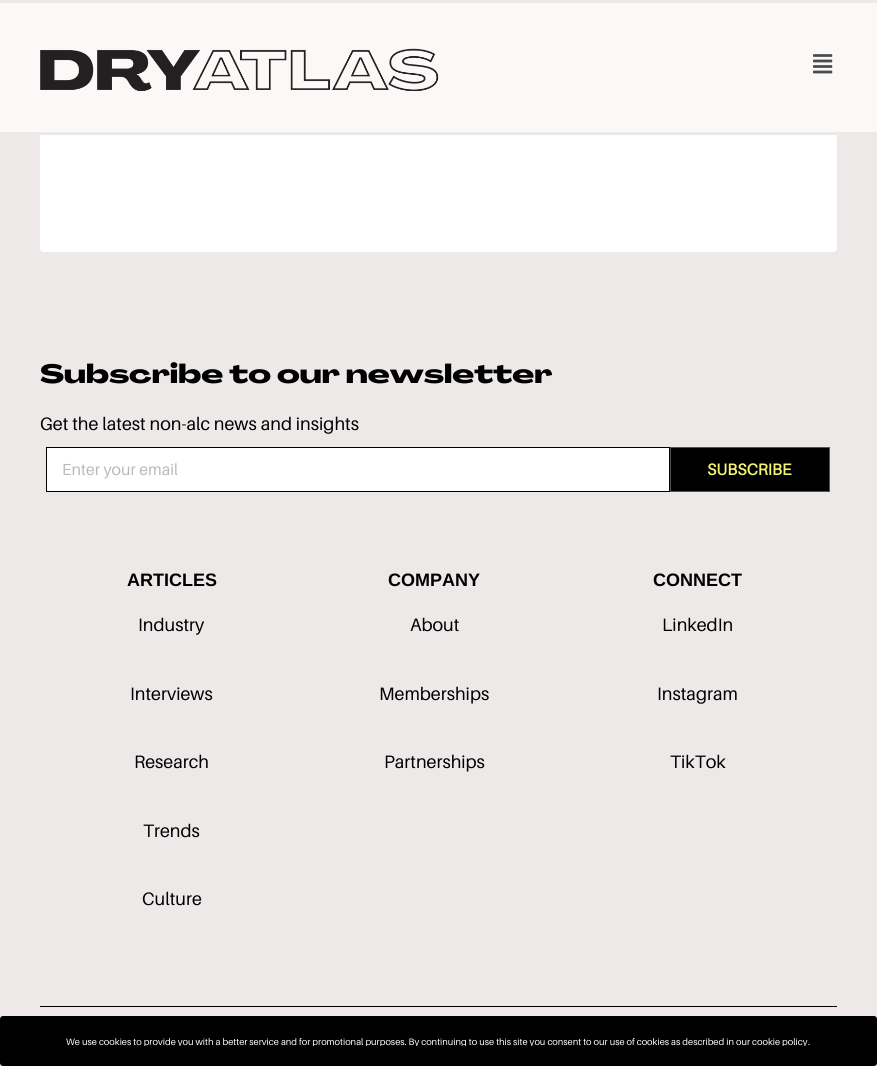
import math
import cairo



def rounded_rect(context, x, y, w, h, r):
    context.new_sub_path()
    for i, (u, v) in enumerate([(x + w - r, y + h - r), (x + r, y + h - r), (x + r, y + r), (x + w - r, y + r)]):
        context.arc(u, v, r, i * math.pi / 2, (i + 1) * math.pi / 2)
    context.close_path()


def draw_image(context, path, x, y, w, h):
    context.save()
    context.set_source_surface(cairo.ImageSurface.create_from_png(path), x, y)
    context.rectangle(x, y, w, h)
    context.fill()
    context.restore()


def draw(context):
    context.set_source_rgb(237 / 255, 233 / 255, 233 / 255)
    context.paint()
    context.set_source_rgb(1, 1, 1)
    rounded_rect(context, 40, -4, 797, 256, 4)
    context.fill()
    context.set_source_rgb(251 / 255, 249 / 255, 248 / 255)
    context.rectangle(0, 3, 877, 129)
    context.fill()
    context.set_source_rgb(237 / 255, 233 / 255, 233 / 255)
    context.rectangle(40, 0, 797, 3)
    context.fill()
    context.rectangle(40, 132, 797, 3)
    context.fill()
    draw_image(context, "images/1.png", 40, 48, 399, 43)
    draw_image(context, "images/2.png", 813, 54, 20, 20)
    context.set_source_rgb(1, 1, 1)
    context.rectangle(46.5, 447.5, 623, 44)
    context.fill_preserve()
    context.set_source_rgb(0, 0, 0)
    context.set_line_width(1)
    context.stroke()
    context.rectangle(670.5, 447.5, 159, 44)
    context.fill_preserve()
    context.set_source_rgb(84 / 255, 84 / 255, 84 / 255)
    context.stroke()
    context.set_source_rgb(0, 0, 0)
    context.rectangle(40, 1006, 797, 1)
    context.fill()
    rounded_rect(context, 0, 1016, 877, 50, 3)
    context.fill()
    context.select_font_face("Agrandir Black")
    context.set_font_size(26)
    context.move_to(40, 383)
    context.show_text("Subscribe to our newsletter")
    context.select_font_face("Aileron")
    context.set_font_size(18)
    context.move_to(40, 430)
    context.show_text("Get the latest non-alc news and insights")
    context.set_font_size(16)
    context.set_source_rgb(186 / 255, 186 / 255, 186 / 255)
    context.move_to(62, 475)
    context.show_text("Enter your email")
    context.select_font_face("Aileron", cairo.FontSlant.NORMAL, cairo.FontWeight.BOLD)
    context.set_source_rgb(245 / 255, 245 / 255, 117 / 255)
    context.move_to(707, 475)
    context.show_text("SUBSCRIBE")
    context.select_font_face("Liberation Sans", cairo.FontSlant.NORMAL, cairo.FontWeight.BOLD)
    context.set_font_size(18)
    context.set_source_rgb(0, 0, 0)
    context.move_to(127, 586)
    context.show_text("ARTICLES")
    context.select_font_face("Aileron")
    context.move_to(138, 631)
    context.show_text("Industry")
    context.move_to(130, 700)
    context.show_text("Interviews")
    context.move_to(134, 768)
    context.show_text("Research")
    context.move_to(143, 837)
    context.show_text("Trends")
    context.move_to(142, 905)
    context.show_text("Culture")
    context.select_font_face("Liberation Sans", cairo.FontSlant.NORMAL, cairo.FontWeight.BOLD)
    context.move_to(388, 586)
    context.show_text("COMPANY")
    context.select_font_face("Aileron")
    context.move_to(410, 631)
    context.show_text("About")
    context.move_to(379, 700)
    context.show_text("Memberships")
    context.move_to(384, 768)
    context.show_text("Partnerships")
    context.select_font_face("Liberation Sans", cairo.FontSlant.NORMAL, cairo.FontWeight.BOLD)
    context.move_to(653, 586)
    context.show_text("CONNECT")
    context.select_font_face("Aileron")
    context.move_to(662, 631)
    context.show_text("LinkedIn")
    context.move_to(657, 700)
    context.show_text("Instagram")
    context.move_to(670, 768)
    context.show_text("TikTok")
    context.save()
    context.rectangle(11, 1034, 854, 12)
    context.clip()
    context.set_font_size(9.32)
    context.set_source_rgb(1, 1, 1)
    context.move_to(66, 1045)
    context.show_text("We use cookies to provide you with a better service and for promotional purposes. By continuing to use this site you consent to our use of cookies as described in our cookie policy")
    context.restore()
    context.set_font_size(9.32)
    context.set_source_rgb(1, 1, 1)
    context.move_to(808, 1045)
    context.show_text(".")


surface = cairo.ImageSurface(cairo.Format.RGB24, 877, 1066)
context = cairo.Context(surface)
options = cairo.FontOptions()
options.set_hint_metrics(cairo.HintMetrics.OFF)
options.set_hint_style(cairo.HintStyle.NONE)
context.set_font_options(options)
context.set_miter_limit(4)
draw(context)
surface.write_to_png("out.png")
